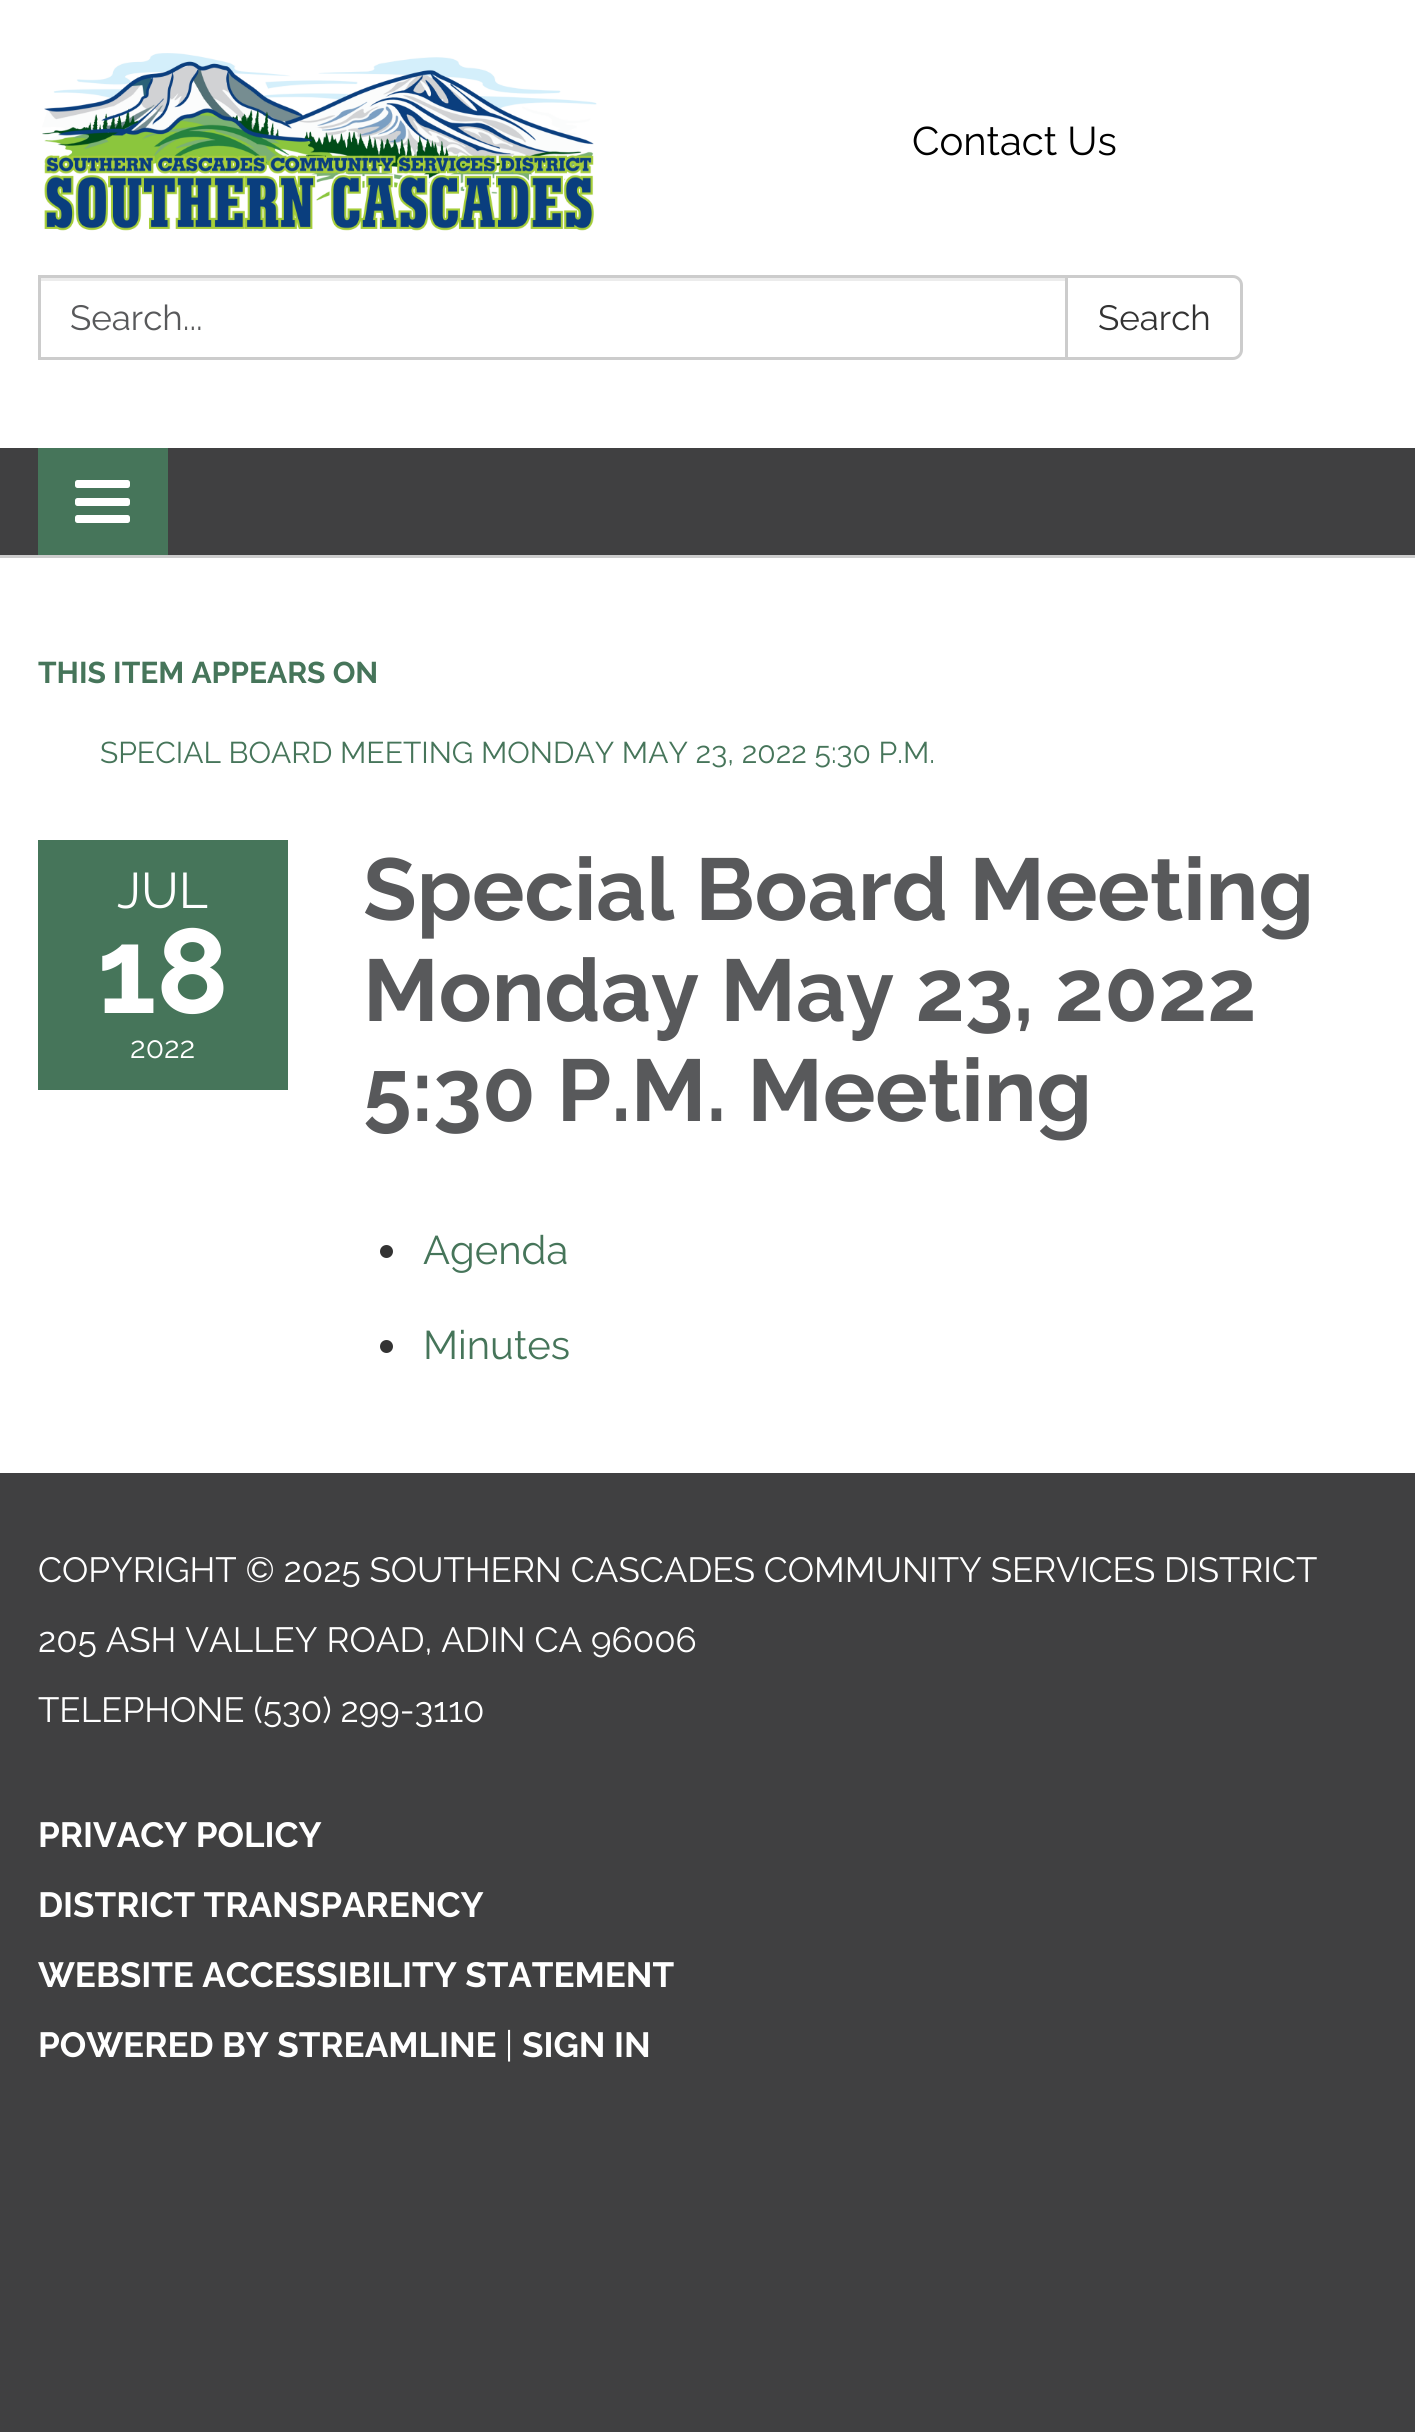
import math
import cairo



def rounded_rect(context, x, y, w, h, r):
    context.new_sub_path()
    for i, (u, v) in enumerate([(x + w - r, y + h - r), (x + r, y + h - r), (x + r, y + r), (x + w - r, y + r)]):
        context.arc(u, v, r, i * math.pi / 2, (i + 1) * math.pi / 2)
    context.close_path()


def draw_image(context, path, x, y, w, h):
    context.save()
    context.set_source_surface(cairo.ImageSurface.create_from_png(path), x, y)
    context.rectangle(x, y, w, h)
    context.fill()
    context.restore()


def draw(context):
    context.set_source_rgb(64 / 255, 64 / 255, 65 / 255)
    context.paint()
    context.set_source_rgb(1, 1, 1)
    context.rectangle(0, 0, 1415, 448)
    context.fill()
    draw_image(context, "images/1.png", 42, 53, 555, 178)
    context.set_source_rgb(236 / 255, 236 / 255, 236 / 255)
    context.rectangle(40, 278, 1025, 3)
    context.fill()
    context.rectangle(39.5, 276.5, 1027, 82)
    context.set_source_rgb(204 / 255, 204 / 255, 204 / 255)
    context.set_line_width(3)
    context.stroke()
    context.set_source_rgb(1, 1, 1)
    context.new_path()
    context.move_to(1066.5, 276.5)
    context.line_to(1233, 276.5)
    context.curve_to(1237.5, 276.5, 1241.5, 280.5, 1241.5, 285)
    context.line_to(1241.5, 350)
    context.curve_to(1241.5, 354.5, 1237.5, 358.5, 1233, 358.5)
    context.line_to(1066.5, 358.5)
    context.close_path()
    context.fill_preserve()
    context.set_source_rgb(204 / 255, 204 / 255, 204 / 255)
    context.stroke()
    context.set_source_rgb(70 / 255, 117 / 255, 90 / 255)
    context.rectangle(38, 448, 130, 107)
    context.fill()
    context.set_source_rgb(1, 1, 1)
    rounded_rect(context, 75, 480, 55, 8, 2.5)
    context.fill()
    rounded_rect(context, 75, 498, 55, 8, 2.5)
    context.fill()
    rounded_rect(context, 75, 515, 55, 8, 2.5)
    context.fill()
    context.rectangle(0, 558, 1415, 915)
    context.fill()
    context.set_source_rgb(204 / 255, 204 / 255, 204 / 255)
    context.rectangle(0, 555, 1415, 3)
    context.fill()
    context.set_source_rgb(70 / 255, 117 / 255, 90 / 255)
    context.rectangle(38, 840, 250, 250)
    context.fill()
    context.set_source_rgb(51 / 255, 51 / 255, 51 / 255)
    context.arc(386.5, 1251.5, 6.5, 0, 2 * math.pi)
    context.fill()
    context.arc(386.5, 1346.5, 6.5, 0, 2 * math.pi)
    context.fill()
    context.select_font_face("Raleway")
    context.set_font_size(40)
    context.set_source_rgb(0, 0, 0)
    context.move_to(912, 155)
    context.show_text("Contact Us")
    context.set_font_size(35)
    context.set_source_rgb(88 / 255, 89 / 255, 91 / 255)
    context.move_to(70, 330)
    context.show_text("Search...")
    context.set_source_rgb(51 / 255, 51 / 255, 51 / 255)
    context.move_to(1098, 330)
    context.show_text("Search")
    context.select_font_face("Raleway", cairo.FontSlant.NORMAL, cairo.FontWeight.BOLD)
    context.set_font_size(30)
    context.set_source_rgb(70 / 255, 117 / 255, 90 / 255)
    context.move_to(38, 683)
    context.show_text("THIS ITEM APPEARS ON")
    context.select_font_face("Raleway")
    context.move_to(100, 763)
    context.show_text("SPECIAL BOARD MEETING MONDAY MAY 23, 2022 5:30 P.M.")
    context.set_font_size(50)
    context.set_source_rgb(1, 1, 1)
    context.move_to(117, 908)
    context.show_text("JUL")
    context.select_font_face("Raleway", cairo.FontSlant.NORMAL, cairo.FontWeight.BOLD)
    context.set_font_size(120)
    context.move_to(97, 1013)
    context.show_text("18")
    context.select_font_face("Raleway")
    context.set_font_size(30)
    context.move_to(130, 1058)
    context.show_text("2022")
    context.select_font_face("Raleway", cairo.FontSlant.NORMAL, cairo.FontWeight.BOLD)
    context.set_font_size(87.5)
    context.set_source_rgb(88 / 255, 89 / 255, 91 / 255)
    context.move_to(363, 920)
    context.show_text("Special Board Meeting")
    context.move_to(363, 1021)
    context.show_text("Monday May 23, 2022")
    context.move_to(363, 1121)
    context.show_text("5:30 P.M. Meeting")
    context.select_font_face("Raleway")
    context.set_font_size(40)
    context.set_source_rgb(70 / 255, 117 / 255, 90 / 255)
    context.move_to(423, 1264)
    context.show_text("Agenda")
    context.move_to(423, 1359)
    context.show_text("Minutes")
    context.set_font_size(35)
    context.set_source_rgb(1, 1, 1)
    context.move_to(38, 1582)
    context.show_text("COPYRIGHT © 2025 SOUTHERN CASCADES COMMUNITY SERVICES DISTRICT")
    context.move_to(38, 1652)
    context.show_text("205 ASH VALLEY ROAD, ADIN CA 96006")
    context.move_to(38, 1722)
    context.show_text("TELEPHONE (530) 299-3110")
    context.select_font_face("Raleway", cairo.FontSlant.NORMAL, cairo.FontWeight.BOLD)
    context.move_to(38, 1847)
    context.show_text("PRIVACY POLICY")
    context.move_to(38, 1917)
    context.show_text("DISTRICT TRANSPARENCY")
    context.move_to(38, 1987)
    context.show_text("WEBSITE ACCESSIBILITY STATEMENT")
    context.move_to(38, 2057)
    context.show_text("POWERED BY STREAMLINE")
    context.select_font_face("Raleway")
    context.move_to(505, 2057)
    context.show_text("|")
    context.select_font_face("Raleway", cairo.FontSlant.NORMAL, cairo.FontWeight.BOLD)
    context.move_to(522, 2057)
    context.show_text("SIGN IN")


surface = cairo.ImageSurface(cairo.Format.RGB24, 1415, 2432)
context = cairo.Context(surface)
options = cairo.FontOptions()
options.set_hint_metrics(cairo.HintMetrics.OFF)
options.set_hint_style(cairo.HintStyle.NONE)
context.set_font_options(options)
context.set_miter_limit(4)
draw(context)
surface.write_to_png("out.png")
